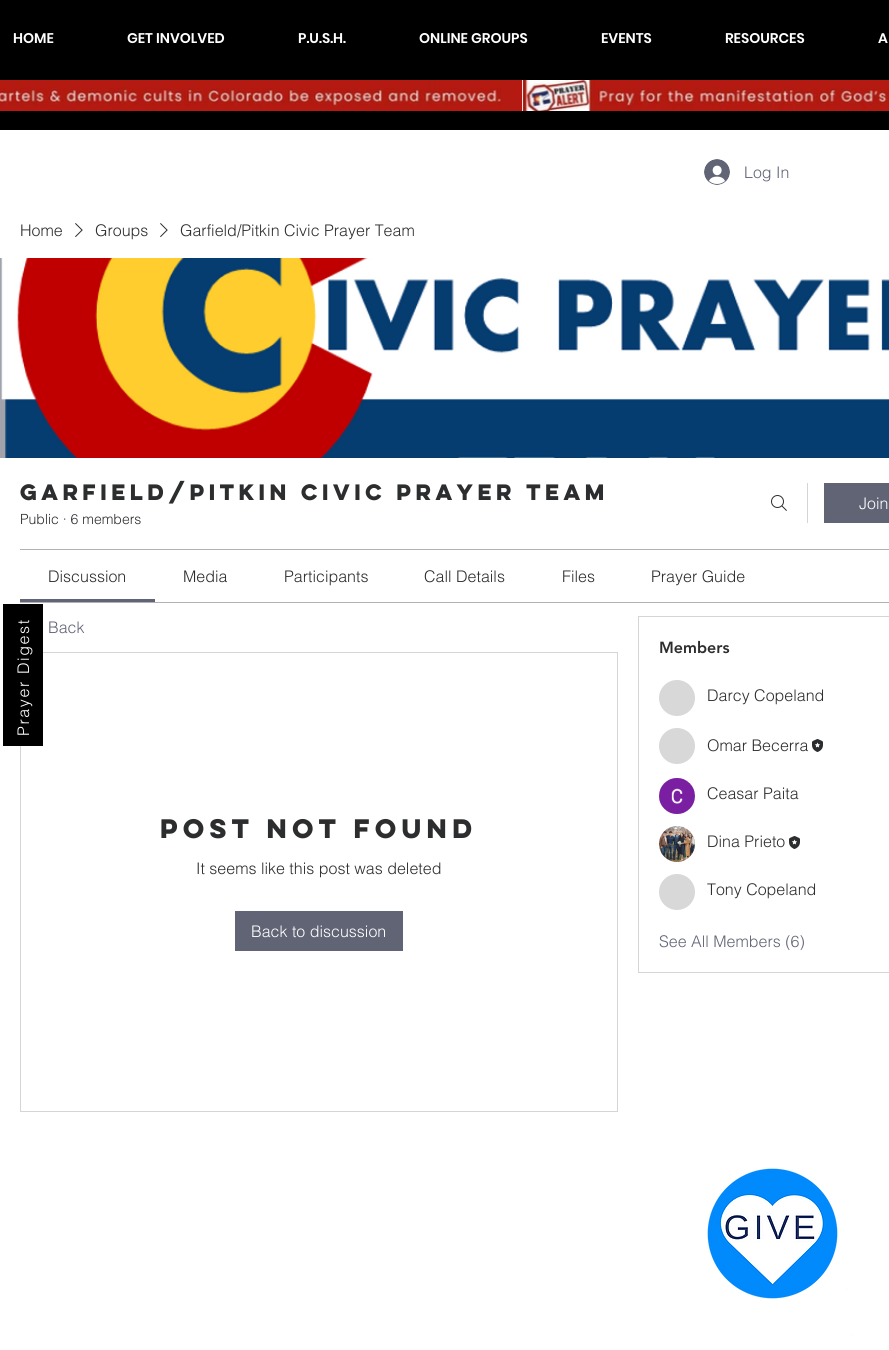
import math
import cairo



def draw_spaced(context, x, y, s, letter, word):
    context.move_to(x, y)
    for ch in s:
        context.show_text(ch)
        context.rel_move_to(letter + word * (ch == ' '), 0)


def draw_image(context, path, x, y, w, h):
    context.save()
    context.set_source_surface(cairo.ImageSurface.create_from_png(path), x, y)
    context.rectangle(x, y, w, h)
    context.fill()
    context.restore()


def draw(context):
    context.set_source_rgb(1, 1, 1)
    context.paint()
    context.set_source_rgb(0, 0, 0)
    context.rectangle(0, 0, 889, 130)
    context.fill()
    draw_image(context, "images/1.png", 0, 80, 522, 31)
    context.set_source_rgb(234 / 255, 234 / 255, 234 / 255)
    context.rectangle(522, 80, 1, 31)
    context.fill()
    draw_image(context, "images/2.png", 523, 80, 366, 31)
    draw_image(context, "images/3.png", 704, 159, 26, 26)
    draw_image(context, "images/4.png", 75, 223, 8, 14)
    draw_image(context, "images/4.png", 160, 223, 8, 14)
    context.set_source_rgb(160 / 255, 162 / 255, 172 / 255)
    context.rectangle(0, 258, 7, 200)
    context.fill()
    draw_image(context, "images/5.png", 1, 258, 888, 200)
    draw_image(context, "images/6.png", 771, 495, 16, 16)
    context.set_source_rgb(213 / 255, 213 / 255, 213 / 255)
    context.rectangle(807, 483, 1, 40)
    context.fill()
    context.set_source_rgb(97 / 255, 100 / 255, 117 / 255)
    context.rectangle(824, 483, 65, 40)
    context.fill()
    context.set_source_rgb(176 / 255, 178 / 255, 184 / 255)
    context.rectangle(20, 549, 869, 1)
    context.fill()
    context.rectangle(20, 602, 869, 1)
    context.fill()
    context.set_source_rgb(97 / 255, 100 / 255, 117 / 255)
    context.rectangle(20, 599, 135, 3)
    context.fill()
    context.rectangle(20.5, 652.5, 597, 459)
    context.set_source_rgb(213 / 255, 213 / 255, 213 / 255)
    context.set_line_width(1)
    context.stroke()
    context.set_source_rgb(97 / 255, 100 / 255, 117 / 255)
    context.rectangle(235, 911, 168, 40)
    context.fill()
    context.rectangle(638.5, 616.5, 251, 356)
    context.set_source_rgb(213 / 255, 213 / 255, 213 / 255)
    context.stroke()
    context.set_source_rgb(216 / 255, 216 / 255, 216 / 255)
    context.arc(677, 698, 18, 0, 2 * math.pi)
    context.fill()
    context.arc(677, 746, 18, 0, 2 * math.pi)
    context.fill()
    draw_image(context, "images/7.png", 812, 739, 11, 13)
    draw_image(context, "images/8.png", 659, 778, 36, 36)
    draw_image(context, "images/9.png", 659, 826, 36, 36)
    draw_image(context, "images/7.png", 789, 836, 11, 13)
    context.arc(677, 892, 18, 0, 2 * math.pi)
    context.fill()
    draw_image(context, "images/10.png", 707, 1168, 131, 131)
    context.set_source_rgb(0, 0, 0)
    context.rectangle(3, 604, 40, 142)
    context.fill()
    context.set_source_rgb(1, 253 / 255, 250 / 255)
    context.rectangle(846, 1287, 3, 3)
    context.fill()
    context.rectangle(851, 1333, 3, 3)
    context.fill()
    context.select_font_face("Poppins SemiBold")
    context.set_font_size(14)
    context.set_source_rgb(1, 1, 1)
    context.move_to(13, 43)
    context.show_text("HOME")
    context.move_to(127, 43)
    context.show_text("GET INVOLVED")
    context.move_to(298, 43)
    context.show_text("P.U.S.H.")
    context.move_to(419, 43)
    context.show_text("ONLINE GROUPS")
    context.move_to(601, 43)
    context.show_text("EVENTS")
    context.move_to(725, 43)
    context.show_text("RESOURCES")
    context.move_to(878, 43)
    context.show_text("A")
    context.select_font_face("helvetica Light")
    context.set_font_size(16)
    context.set_source_rgb(97 / 255, 100 / 255, 117 / 255)
    context.move_to(744, 178)
    context.show_text("Log In")
    context.set_source_rgb(44 / 255, 45 / 255, 46 / 255)
    context.move_to(20, 236)
    context.show_text("Home")
    context.move_to(95, 236)
    context.show_text("Groups")
    context.move_to(180, 236)
    context.show_text("Garfield/Pitkin Civic Prayer Team")
    context.select_font_face("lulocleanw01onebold", cairo.FontSlant.NORMAL, cairo.FontWeight.BOLD)
    context.set_font_size(20)
    context.move_to(20, 500)
    context.show_text("Garfield/Pitkin Civic Prayer Team")
    context.select_font_face("helvetica Light")
    context.set_font_size(14)
    context.move_to(20, 524)
    context.show_text("Public · 6 members")
    context.set_font_size(16)
    context.set_source_rgb(1, 1, 1)
    context.move_to(859, 509)
    context.show_text("Join")
    context.set_source_rgb(44 / 255, 45 / 255, 46 / 255)
    context.move_to(48, 582)
    context.show_text("Discussion")
    context.move_to(183, 582)
    context.show_text("Media")
    context.move_to(284, 582)
    context.show_text("Participants")
    context.move_to(424, 582)
    context.show_text("Call Details")
    context.move_to(562, 582)
    context.show_text("Files")
    context.move_to(651, 582)
    context.show_text("Prayer Guide")
    context.set_source_rgb(97 / 255, 100 / 255, 117 / 255)
    context.move_to(48, 633)
    context.show_text("Back")
    context.select_font_face("lulocleanw01onebold", cairo.FontSlant.NORMAL, cairo.FontWeight.BOLD)
    context.set_font_size(24)
    context.set_source_rgb(44 / 255, 45 / 255, 46 / 255)
    context.move_to(160, 838)
    context.show_text("Post Not Found")
    context.select_font_face("helvetica Light")
    context.set_font_size(16)
    context.move_to(196, 874)
    context.show_text("It seems like this post was deleted")
    context.set_source_rgb(1, 1, 1)
    context.move_to(251, 937)
    context.show_text("Back to discussion")
    context.select_font_face("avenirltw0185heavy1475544 Black")
    context.set_source_rgb(44 / 255, 45 / 255, 46 / 255)
    context.move_to(659, 653)
    context.show_text("Members")
    context.select_font_face("helvetica Light")
    context.move_to(707, 701)
    context.show_text("Darcy Copeland")
    context.move_to(707, 751)
    context.show_text("Omar Becerra")
    context.move_to(707, 799)
    context.show_text("Ceasar Paita")
    context.move_to(707, 847)
    context.show_text("Dina Prieto")
    context.move_to(707, 895)
    context.show_text("Tony Copeland")
    context.set_source_rgb(97 / 255, 100 / 255, 117 / 255)
    context.move_to(659, 947)
    context.show_text("See All Members (6)")
    context.set_source_rgb(1, 1, 1)
    context.save()
    context.translate(29, 736)
    context.rotate(-90 * math.pi / 180)
    draw_spaced(context, 0, 0, "Prayer Digest", 1.6, 0)
    context.restore()


surface = cairo.ImageSurface(cairo.Format.RGB24, 889, 1350)
context = cairo.Context(surface)
options = cairo.FontOptions()
options.set_hint_metrics(cairo.HintMetrics.OFF)
options.set_hint_style(cairo.HintStyle.NONE)
context.set_font_options(options)
context.set_miter_limit(4)
draw(context)
surface.write_to_png("out.png")
